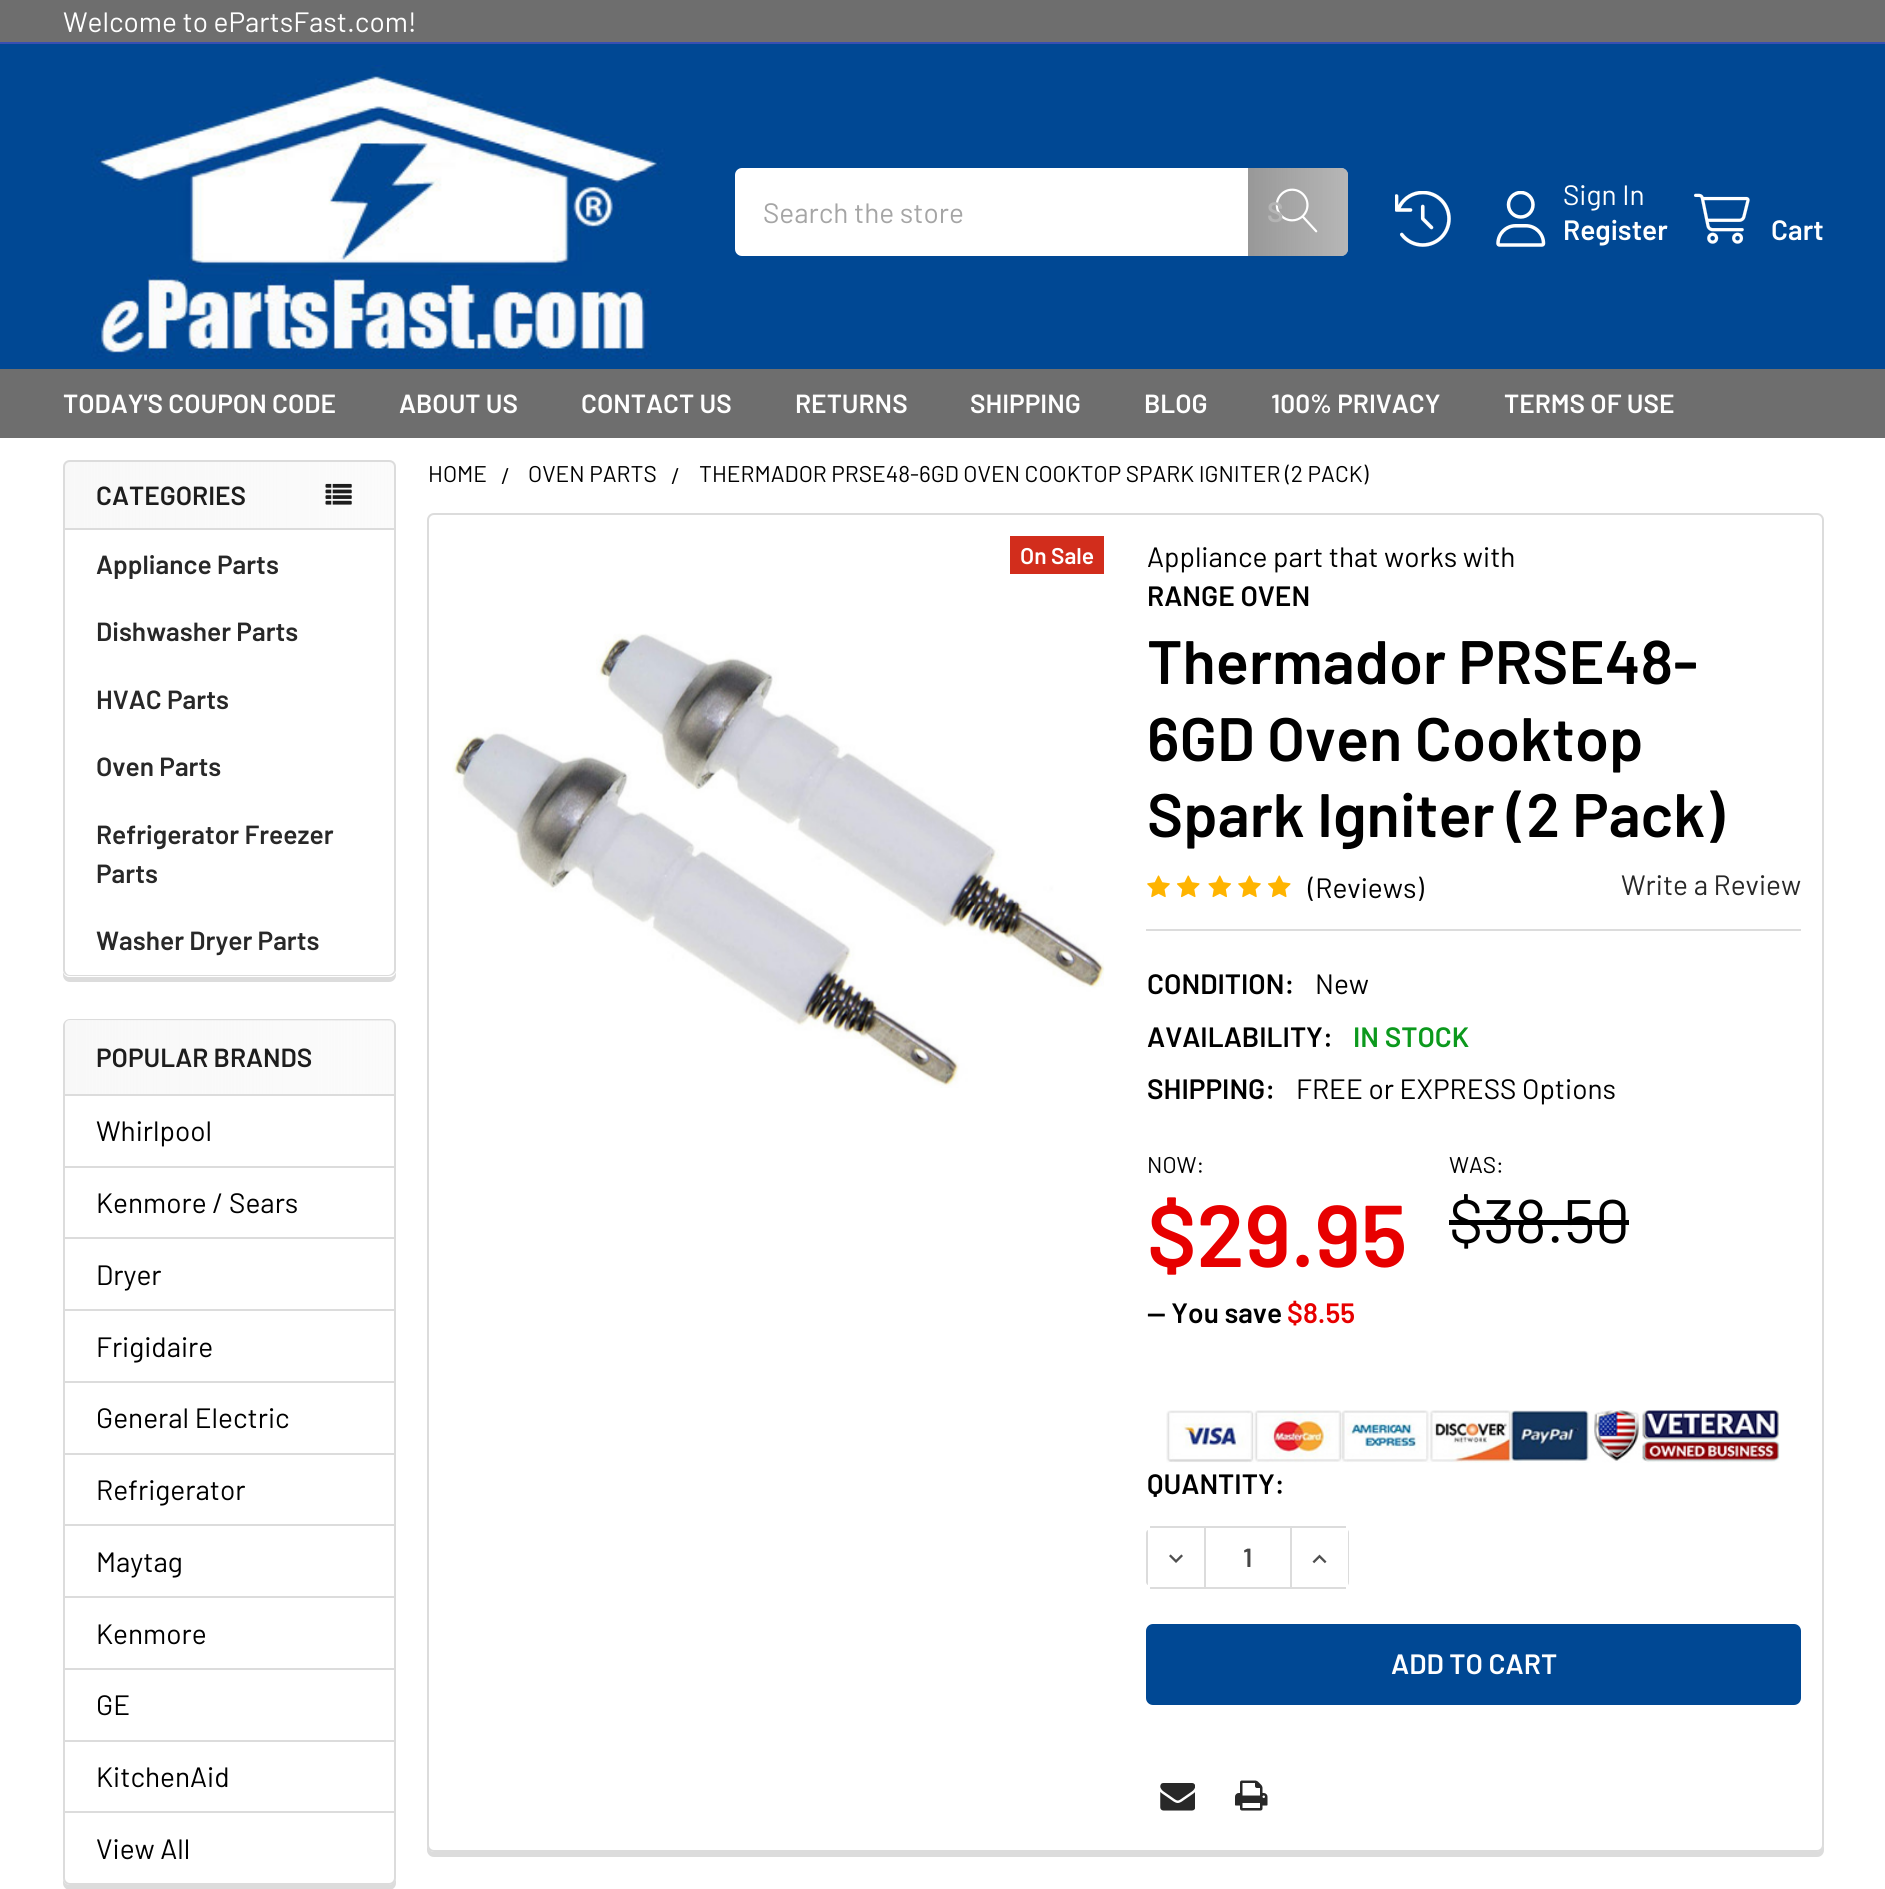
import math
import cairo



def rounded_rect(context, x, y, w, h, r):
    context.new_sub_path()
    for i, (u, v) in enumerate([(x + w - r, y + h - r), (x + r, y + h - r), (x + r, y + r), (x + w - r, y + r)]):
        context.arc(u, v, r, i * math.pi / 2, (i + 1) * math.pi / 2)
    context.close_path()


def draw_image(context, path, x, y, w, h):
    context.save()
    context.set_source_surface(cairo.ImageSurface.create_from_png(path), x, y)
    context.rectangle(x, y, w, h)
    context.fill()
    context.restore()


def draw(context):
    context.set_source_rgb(1, 1, 1)
    context.paint()
    context.set_source_rgb(0, 72 / 255, 148 / 255)
    context.rectangle(0, 44, 1885, 325)
    context.fill()
    context.set_source_rgb(110 / 255, 110 / 255, 110 / 255)
    context.rectangle(0, 0, 1885, 42)
    context.fill()
    context.set_source_rgb(56 / 255, 79 / 255, 178 / 255)
    context.rectangle(0, 42, 1885, 2)
    context.fill()
    draw_image(context, "images/1.png", 91, 65, 574, 294)
    context.set_source_rgb(1, 1, 1)
    rounded_rect(context, 735, 168, 613, 88, 7)
    context.fill()
    gradient = cairo.LinearGradient(1248, 212, 1348, 212)
    gradient.add_color_stop_rgba(0, 152 / 255, 152 / 255, 152 / 255, 1)
    gradient.add_color_stop_rgba(1, 152 / 255, 152 / 255, 152 / 255, 0.7)
    context.set_source(gradient)
    context.new_path()
    context.move_to(1248, 168)
    context.line_to(1341, 168)
    context.curve_to(1345, 168, 1348, 171, 1348, 175)
    context.line_to(1348, 249)
    context.curve_to(1348, 253, 1345, 256, 1341, 256)
    context.line_to(1248, 256)
    context.close_path()
    context.fill()
    draw_image(context, "images/2.png", 1275, 188, 43, 45)
    draw_image(context, "images/3.png", 1395, 191, 56, 56)
    draw_image(context, "images/4.png", 1496, 191, 50, 56)
    draw_image(context, "images/5.png", 1694, 193, 56, 51)
    context.set_source_rgb(110 / 255, 110 / 255, 110 / 255)
    context.rectangle(0, 369, 1885, 69)
    context.fill()
    context.set_source_rgb(220 / 255, 220 / 255, 220 / 255)
    context.new_path()
    context.move_to(63, 970)
    context.line_to(63, 975)
    context.curve_to(63, 979, 66, 982, 70, 982)
    context.line_to(389, 982)
    context.curve_to(393, 982, 396, 979, 396, 975)
    context.line_to(396, 473)
    context.line_to(396, 470)
    context.line_to(396, 970)
    context.curve_to(396, 973, 392, 976, 388, 976)
    context.line_to(70, 976)
    context.curve_to(66, 976, 63, 973, 63, 970)
    context.close_path()
    context.fill()
    context.set_source_rgb(1, 1, 1)
    rounded_rect(context, 63, 460, 333, 517, 7)
    context.fill()
    gradient = cairo.LinearGradient(63, 718, 396, 718)
    gradient.add_color_stop_rgba(0, 248 / 255, 248 / 255, 248 / 255, 1)
    gradient.add_color_stop_rgba(1, 248 / 255, 248 / 255, 248 / 255, 0.6)
    context.set_source(gradient)
    rounded_rect(context, 63, 460, 333, 517, 7)
    context.fill()
    context.new_path()
    context.move_to(70, 461)
    context.line_to(389, 461)
    context.curve_to(392.5, 461, 395, 463.5, 395, 467)
    context.line_to(395, 529)
    context.line_to(64, 529)
    context.line_to(64, 467)
    context.curve_to(64, 463.5, 66.5, 461, 70, 461)
    context.close_path()
    context.set_source_rgb(220 / 255, 220 / 255, 220 / 255)
    context.stroke()
    draw_image(context, "images/6.png", 325, 483, 27, 22)
    context.set_source_rgb(1, 1, 1)
    context.new_path()
    context.move_to(63, 530)
    context.line_to(396, 530)
    context.line_to(396, 970)
    context.curve_to(396, 974, 393, 977, 389, 977)
    context.line_to(70, 977)
    context.curve_to(66, 977, 63, 974, 63, 970)
    context.close_path()
    context.fill()
    context.set_source_rgb(220 / 255, 220 / 255, 220 / 255)
    context.set_fill_rule(cairo.FillRule.EVEN_ODD)
    context.new_path()
    context.move_to(63, 530)
    context.line_to(396, 530)
    context.line_to(396, 970)
    context.curve_to(396, 973, 392, 976, 388, 976)
    context.line_to(70, 976)
    context.curve_to(66, 976, 63, 973, 63, 970)
    context.close_path()
    context.move_to(65, 530)
    context.line_to(394, 530)
    context.line_to(394, 970)
    context.curve_to(394, 972, 391, 975, 388, 975)
    context.line_to(70, 975)
    context.curve_to(67, 975, 65, 972, 65, 970)
    context.close_path()
    context.fill()
    context.set_fill_rule(cairo.FillRule.WINDING)
    context.new_path()
    context.move_to(63, 1878)
    context.line_to(63, 1883)
    context.curve_to(63, 1887, 66, 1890, 70, 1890)
    context.line_to(389, 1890)
    context.curve_to(393, 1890, 396, 1887, 396, 1883)
    context.line_to(396, 1031)
    context.line_to(396, 1028)
    context.line_to(396, 1878)
    context.curve_to(396, 1882, 392, 1885, 388, 1885)
    context.line_to(70, 1885)
    context.curve_to(66, 1885, 63, 1882, 63, 1878)
    context.close_path()
    context.fill()
    context.set_source_rgb(1, 1, 1)
    rounded_rect(context, 64, 1020, 331, 864, 6)
    context.fill_preserve()
    context.set_source_rgb(220 / 255, 220 / 255, 220 / 255)
    context.stroke()
    gradient = cairo.LinearGradient(65, 1057, 394, 1057)
    gradient.add_color_stop_rgba(0, 248 / 255, 248 / 255, 248 / 255, 1)
    gradient.add_color_stop_rgba(1, 248 / 255, 248 / 255, 248 / 255, 0.6)
    context.set_source(gradient)
    context.new_path()
    context.move_to(70, 1020)
    context.line_to(389, 1020)
    context.curve_to(392, 1020, 394, 1022, 394, 1025)
    context.line_to(394, 1096)
    context.line_to(65, 1096)
    context.line_to(65, 1025)
    context.curve_to(65, 1022, 67, 1020, 70, 1020)
    context.close_path()
    context.fill()
    context.set_source_rgb(220 / 255, 220 / 255, 220 / 255)
    context.rectangle(65, 1094, 329, 2)
    context.fill()
    context.rectangle(65, 1166, 329, 2)
    context.fill()
    context.rectangle(65, 1237, 329, 2)
    context.fill()
    context.rectangle(65, 1309, 329, 2)
    context.fill()
    context.rectangle(65, 1381, 329, 2)
    context.fill()
    context.rectangle(65, 1453, 329, 2)
    context.fill()
    context.rectangle(65, 1524, 329, 2)
    context.fill()
    context.rectangle(65, 1596, 329, 2)
    context.fill()
    context.rectangle(65, 1668, 329, 2)
    context.fill()
    context.rectangle(65, 1740, 329, 2)
    context.fill()
    context.rectangle(65, 1811, 329, 2)
    context.fill()
    context.new_path()
    context.move_to(427, 1844)
    context.line_to(427, 1850)
    context.curve_to(427, 1854, 430, 1857, 434, 1857)
    context.line_to(1817, 1857)
    context.curve_to(1821, 1857, 1824, 1854, 1824, 1850)
    context.line_to(1824, 525)
    context.line_to(1824, 522)
    context.line_to(1824, 1844)
    context.curve_to(1824, 1848, 1820, 1852, 1816, 1852)
    context.line_to(434, 1852)
    context.curve_to(430, 1852, 427, 1848, 427, 1844)
    context.close_path()
    context.fill()
    context.set_source_rgb(1, 1, 1)
    rounded_rect(context, 428, 514, 1395, 1337, 6)
    context.fill_preserve()
    context.set_source_rgb(220 / 255, 220 / 255, 220 / 255)
    context.stroke()
    context.set_source_rgb(210 / 255, 45 / 255, 28 / 255)
    context.rectangle(1010, 536, 94, 38)
    context.fill()
    draw_image(context, "images/7.png", 452, 633, 653, 455)
    draw_image(context, "images/8.png", 1147, 875, 23, 23)
    draw_image(context, "images/9.png", 1176, 875, 24, 23)
    draw_image(context, "images/10.png", 1208, 875, 24, 23)
    draw_image(context, "images/8.png", 1238, 875, 23, 23)
    draw_image(context, "images/9.png", 1267, 875, 24, 23)
    context.set_source_rgb(220 / 255, 220 / 255, 220 / 255)
    context.rectangle(1146, 929, 655, 2)
    context.fill()
    context.set_source_rgb(0, 0, 0)
    context.rectangle(1449, 1220, 180, 5)
    context.fill()
    draw_image(context, "images/11.png", 1166, 1410, 614, 53)
    context.set_source_rgb(220 / 255, 220 / 255, 220 / 255)
    context.rectangle(1150, 1526, 196, 2)
    context.fill()
    context.rectangle(1150, 1587, 196, 2)
    context.fill()
    context.rectangle(1204, 1528, 2, 59)
    context.fill()
    context.new_path()
    context.move_to(1148, 1585)
    context.curve_to(1147, 1585, 1146, 1583, 1146, 1582)
    context.line_to(1146, 1533)
    context.curve_to(1146, 1532, 1147, 1530, 1148, 1530)
    context.close_path()
    context.fill()
    draw_image(context, "images/12.png", 1169, 1554, 14, 9)
    context.new_path()
    context.move_to(1348, 1530)
    context.curve_to(1349, 1531, 1349, 1532, 1349, 1533)
    context.line_to(1349, 1582)
    context.curve_to(1349, 1583, 1349, 1584, 1348, 1585)
    context.close_path()
    context.fill()
    context.rectangle(1290, 1528, 2, 59)
    context.fill()
    draw_image(context, "images/13.png", 1312, 1554, 15, 10)
    context.set_source_rgb(0, 72 / 255, 148 / 255)
    rounded_rect(context, 1147, 1625, 653, 79, 6)
    context.fill_preserve()
    context.stroke()
    draw_image(context, "images/14.png", 1160, 1783, 35, 28)
    draw_image(context, "images/15.png", 1235, 1780, 33, 31)
    context.select_font_face("Barlow")
    context.set_font_size(28)
    context.set_source_rgb(1, 1, 1)
    context.move_to(63, 32)
    context.show_text("Welcome to ePartsFast.com!")
    context.set_source_rgb(165 / 255, 165 / 255, 165 / 255)
    context.move_to(763, 223)
    context.show_text("Search the store")
    context.select_font_face("Barlow SemiBold")
    context.set_source_rgb(180 / 255, 180 / 255, 180 / 255)
    context.move_to(1267, 222)
    context.show_text("S")
    context.select_font_face("Barlow")
    context.set_source_rgb(1, 1, 1)
    context.move_to(1563, 205)
    context.show_text("Sign In")
    context.select_font_face("Barlow SemiBold")
    context.move_to(1563, 240)
    context.show_text("Register")
    context.move_to(1771, 240)
    context.show_text("Cart")
    context.set_font_size(26.25)
    context.move_to(63, 413)
    context.show_text("TODAY'S COUPON CODE")
    context.move_to(399, 413)
    context.show_text("ABOUT US")
    context.move_to(581, 413)
    context.show_text("CONTACT US")
    context.move_to(795, 413)
    context.show_text("RETURNS")
    context.move_to(970, 413)
    context.show_text("SHIPPING")
    context.move_to(1144, 413)
    context.show_text("BLOG")
    context.move_to(1271, 413)
    context.show_text("100% PRIVACY")
    context.move_to(1504, 413)
    context.show_text("TERMS OF USE")
    context.set_source_rgb(29 / 255, 29 / 255, 29 / 255)
    context.move_to(96, 505)
    context.show_text("CATEGORIES")
    context.set_source_rgb(40 / 255, 40 / 255, 40 / 255)
    context.move_to(96, 574)
    context.show_text("Appliance Parts")
    context.move_to(96, 641)
    context.show_text("Dishwasher Parts")
    context.move_to(96, 709)
    context.show_text("HVAC Parts")
    context.move_to(96, 776)
    context.show_text("Oven Parts")
    context.move_to(96, 844)
    context.show_text("Refrigerator Freezer")
    context.move_to(96, 883)
    context.show_text("Parts")
    context.move_to(96, 950)
    context.show_text("Washer Dryer Parts")
    context.set_source_rgb(29 / 255, 29 / 255, 29 / 255)
    context.move_to(96, 1067)
    context.show_text("POPULAR BRANDS")
    context.select_font_face("Barlow")
    context.set_font_size(28)
    context.set_source_rgb(0, 0, 0)
    context.move_to(96, 1141)
    context.show_text("Whirlpool")
    context.move_to(96, 1213)
    context.show_text("Kenmore / Sears")
    context.move_to(96, 1285)
    context.show_text("Dryer")
    context.move_to(96, 1357)
    context.show_text("Frigidaire")
    context.move_to(96, 1428)
    context.show_text("General Electric")
    context.move_to(96, 1500)
    context.show_text("Refrigerator")
    context.move_to(96, 1572)
    context.show_text("Maytag")
    context.move_to(96, 1644)
    context.show_text("Kenmore")
    context.move_to(96, 1715)
    context.show_text("GE")
    context.move_to(96, 1787)
    context.show_text("KitchenAid")
    context.move_to(96, 1859)
    context.show_text("View All")
    context.set_font_size(22.75)
    context.move_to(428, 482)
    context.show_text("HOME")
    context.move_to(501, 484)
    context.show_text("/")
    context.move_to(528, 482)
    context.show_text("OVEN PARTS")
    context.move_to(671, 484)
    context.show_text("/")
    context.move_to(699, 482)
    context.show_text("THERMADOR PRSE48-6GD OVEN COOKTOP SPARK IGNITER (2 PACK)")
    context.select_font_face("Barlow SemiBold")
    context.set_source_rgb(1, 1, 1)
    context.move_to(1020, 564)
    context.show_text("On Sale")
    context.select_font_face("Barlow")
    context.set_font_size(28)
    context.set_source_rgb(0, 0, 0)
    context.move_to(1147, 567)
    context.show_text("Appliance part that works with")
    context.select_font_face("Barlow SemiBold")
    context.move_to(1147, 606)
    context.show_text("RANGE OVEN")
    context.set_font_size(61.25)
    context.move_to(1147, 684)
    context.show_text("Thermador PRSE48-")
    context.move_to(1147, 761)
    context.show_text("6GD Oven Cooktop")
    context.move_to(1147, 837)
    context.show_text("Spark Igniter (2 Pack)")
    context.select_font_face("Barlow")
    context.set_font_size(28)
    context.move_to(1308, 898)
    context.show_text("(Reviews)")
    context.set_source_rgb(40 / 255, 40 / 255, 40 / 255)
    context.move_to(1621, 895)
    context.show_text("Write a Review")
    context.select_font_face("Barlow SemiBold")
    context.set_source_rgb(0, 0, 0)
    context.move_to(1147, 994)
    context.show_text("CONDITION:")
    context.select_font_face("Barlow")
    context.move_to(1315, 994)
    context.show_text("New")
    context.select_font_face("Barlow SemiBold")
    context.move_to(1147, 1047)
    context.show_text("AVAILABILITY:")
    context.set_source_rgb(12 / 255, 153 / 255, 29 / 255)
    context.move_to(1353, 1047)
    context.show_text("IN STOCK")
    context.set_source_rgb(0, 0, 0)
    context.move_to(1147, 1099)
    context.show_text("SHIPPING:")
    context.select_font_face("Barlow")
    context.move_to(1296, 1099)
    context.show_text("FREE or EXPRESS Options")
    context.set_font_size(22.75)
    context.move_to(1147, 1173)
    context.show_text("NOW:")
    context.select_font_face("Barlow SemiBold")
    context.set_font_size(87.5)
    context.set_source_rgb(231 / 255, 0, 0)
    context.move_to(1147, 1267)
    context.show_text("$29.95")
    context.select_font_face("Barlow")
    context.set_font_size(22.75)
    context.set_source_rgb(0, 0, 0)
    context.move_to(1449, 1173)
    context.show_text("WAS:")
    context.set_font_size(61.25)
    context.move_to(1449, 1243)
    context.show_text("$38.50")
    context.select_font_face("Barlow SemiBold")
    context.set_font_size(28)
    context.move_to(1147, 1323)
    context.show_text("— You save")
    context.set_source_rgb(231 / 255, 0, 0)
    context.move_to(1287, 1323)
    context.show_text("$8.55")
    context.set_source_rgb(0, 0, 0)
    context.move_to(1147, 1494)
    context.show_text("QUANTITY:")
    context.set_font_size(26.25)
    context.set_source_rgb(69 / 255, 69 / 255, 69 / 255)
    context.move_to(1243, 1567)
    context.show_text("1")
    context.set_font_size(28)
    context.set_source_rgb(1, 1, 1)
    context.move_to(1391, 1674)
    context.show_text("ADD TO CART")


surface = cairo.ImageSurface(cairo.Format.RGB24, 1885, 1889)
context = cairo.Context(surface)
options = cairo.FontOptions()
options.set_hint_metrics(cairo.HintMetrics.OFF)
options.set_hint_style(cairo.HintStyle.NONE)
context.set_font_options(options)
context.set_miter_limit(4)
draw(context)
surface.write_to_png("out.png")
